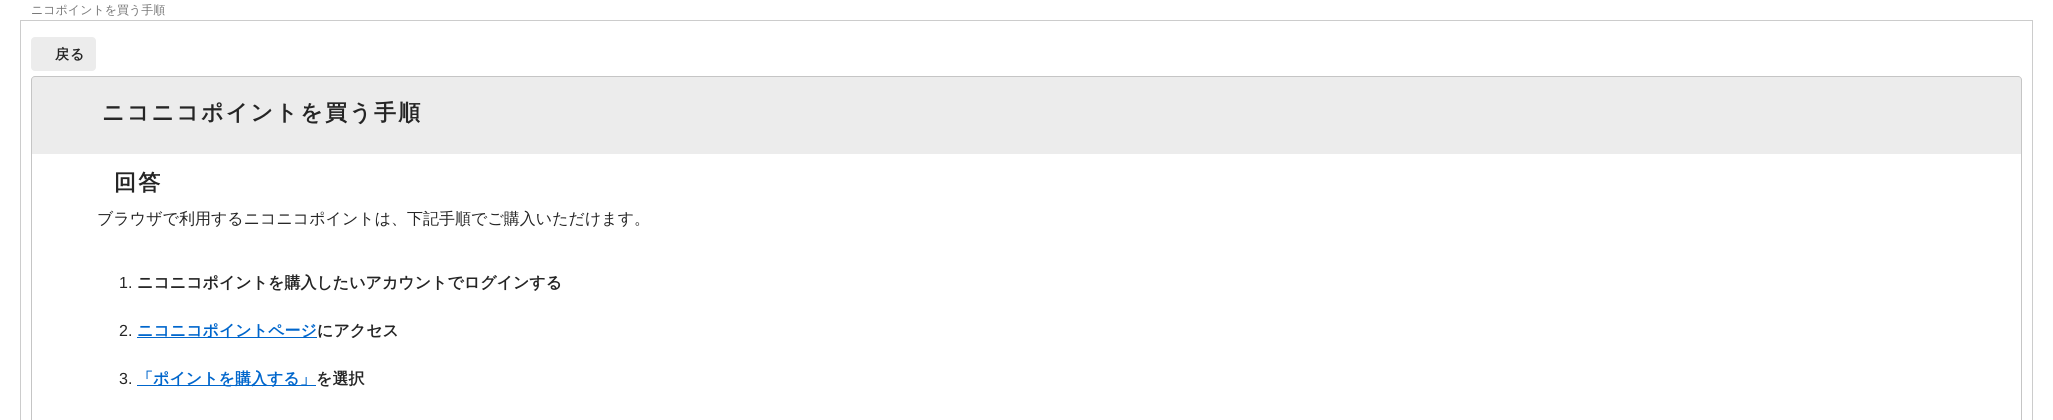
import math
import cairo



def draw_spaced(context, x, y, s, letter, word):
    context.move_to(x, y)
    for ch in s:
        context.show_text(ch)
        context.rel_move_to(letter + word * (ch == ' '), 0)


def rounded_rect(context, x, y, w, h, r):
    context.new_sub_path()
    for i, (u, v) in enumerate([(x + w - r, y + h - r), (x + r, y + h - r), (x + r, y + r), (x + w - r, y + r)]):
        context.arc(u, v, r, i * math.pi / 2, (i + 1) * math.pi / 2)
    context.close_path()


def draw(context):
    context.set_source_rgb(1, 1, 1)
    context.paint()
    context.rectangle(20.5, 20.5, 2012, 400)
    context.set_source_rgb(204 / 255, 204 / 255, 204 / 255)
    context.set_line_width(1)
    context.stroke()
    context.set_source_rgb(236 / 255, 236 / 255, 236 / 255)
    rounded_rect(context, 31, 37, 65, 34, 4)
    context.fill()
    context.new_path()
    context.move_to(35, 76)
    context.line_to(2018, 76)
    context.curve_to(2020, 76, 2022, 78, 2022, 80)
    context.line_to(2022, 154)
    context.line_to(31, 154)
    context.line_to(31, 80)
    context.curve_to(31, 78, 33, 76, 35, 76)
    context.close_path()
    context.fill()
    context.set_source_rgb(197 / 255, 197 / 255, 197 / 255)
    context.set_fill_rule(cairo.FillRule.EVEN_ODD)
    context.new_path()
    context.move_to(35, 76)
    context.line_to(2018, 76)
    context.curve_to(2020, 76, 2022, 78, 2022, 80)
    context.line_to(2022, 154)
    context.line_to(31, 154)
    context.line_to(31, 80)
    context.curve_to(31, 78, 33, 76, 35, 76)
    context.close_path()
    context.move_to(35, 77)
    context.line_to(2018, 77)
    context.curve_to(2020, 77, 2021, 78, 2021, 80)
    context.line_to(2021, 154)
    context.line_to(32, 154)
    context.line_to(32, 80)
    context.curve_to(32, 78, 33, 77, 35, 77)
    context.close_path()
    context.fill()
    context.rectangle(2021, 154, 1, 266)
    context.fill()
    context.rectangle(31, 154, 1, 266)
    context.fill()
    context.set_source_rgb(0, 102 / 255, 204 / 255)
    context.rectangle(137, 337, 180, 1)
    context.fill()
    context.rectangle(137, 385, 179, 1)
    context.fill()
    context.select_font_face("WenQuanYi Zen Hei Medium")
    context.set_font_size(12)
    context.set_source_rgb(119 / 255, 119 / 255, 119 / 255)
    context.move_to(31, 14)
    context.show_text("ニコポイントを買う手順")
    context.select_font_face("WenQuanYi Zen Hei", cairo.FontSlant.NORMAL, cairo.FontWeight.BOLD)
    context.set_font_size(14)
    context.set_source_rgb(37 / 255, 37 / 255, 37 / 255)
    draw_spaced(context, 55, 59, "戻る", 1, 0)
    context.set_font_size(22)
    draw_spaced(context, 102, 120, "ニコニコポイントを買う手順", 2.25, 0)
    draw_spaced(context, 114, 190, "回答", 2.25, 0)
    context.select_font_face("WenQuanYi Zen Hei Medium")
    context.set_font_size(16)
    context.move_to(97, 224)
    context.show_text("ブラウザで利用するニコニコポイントは、下記手順でご購入いただけます。")
    context.select_font_face("Liberation Sans")
    context.move_to(119, 288)
    context.show_text("1.")
    context.select_font_face("WenQuanYi Zen Hei", cairo.FontSlant.NORMAL, cairo.FontWeight.BOLD)
    context.move_to(137, 288)
    context.show_text("ニコニコポイントを購入したいアカウントでログインする")
    context.select_font_face("Liberation Sans")
    context.move_to(119, 336)
    context.show_text("2.")
    context.select_font_face("WenQuanYi Zen Hei", cairo.FontSlant.NORMAL, cairo.FontWeight.BOLD)
    context.set_source_rgb(0, 102 / 255, 204 / 255)
    context.move_to(137, 336)
    context.show_text("ニコニコポイントページ")
    context.set_source_rgb(37 / 255, 37 / 255, 37 / 255)
    context.move_to(317, 336)
    context.show_text("にアクセス")
    context.select_font_face("Liberation Sans")
    context.move_to(119, 384)
    context.show_text("3.")
    context.select_font_face("WenQuanYi Zen Hei", cairo.FontSlant.NORMAL, cairo.FontWeight.BOLD)
    context.set_source_rgb(0, 102 / 255, 204 / 255)
    context.move_to(137, 384)
    context.show_text("「ポイントを購入する」")
    context.set_source_rgb(37 / 255, 37 / 255, 37 / 255)
    context.move_to(316, 384)
    context.show_text("を選択")


surface = cairo.ImageSurface(cairo.Format.RGB24, 2053, 420)
context = cairo.Context(surface)
options = cairo.FontOptions()
options.set_hint_metrics(cairo.HintMetrics.OFF)
options.set_hint_style(cairo.HintStyle.NONE)
context.set_font_options(options)
context.set_miter_limit(4)
draw(context)
surface.write_to_png("out.png")
